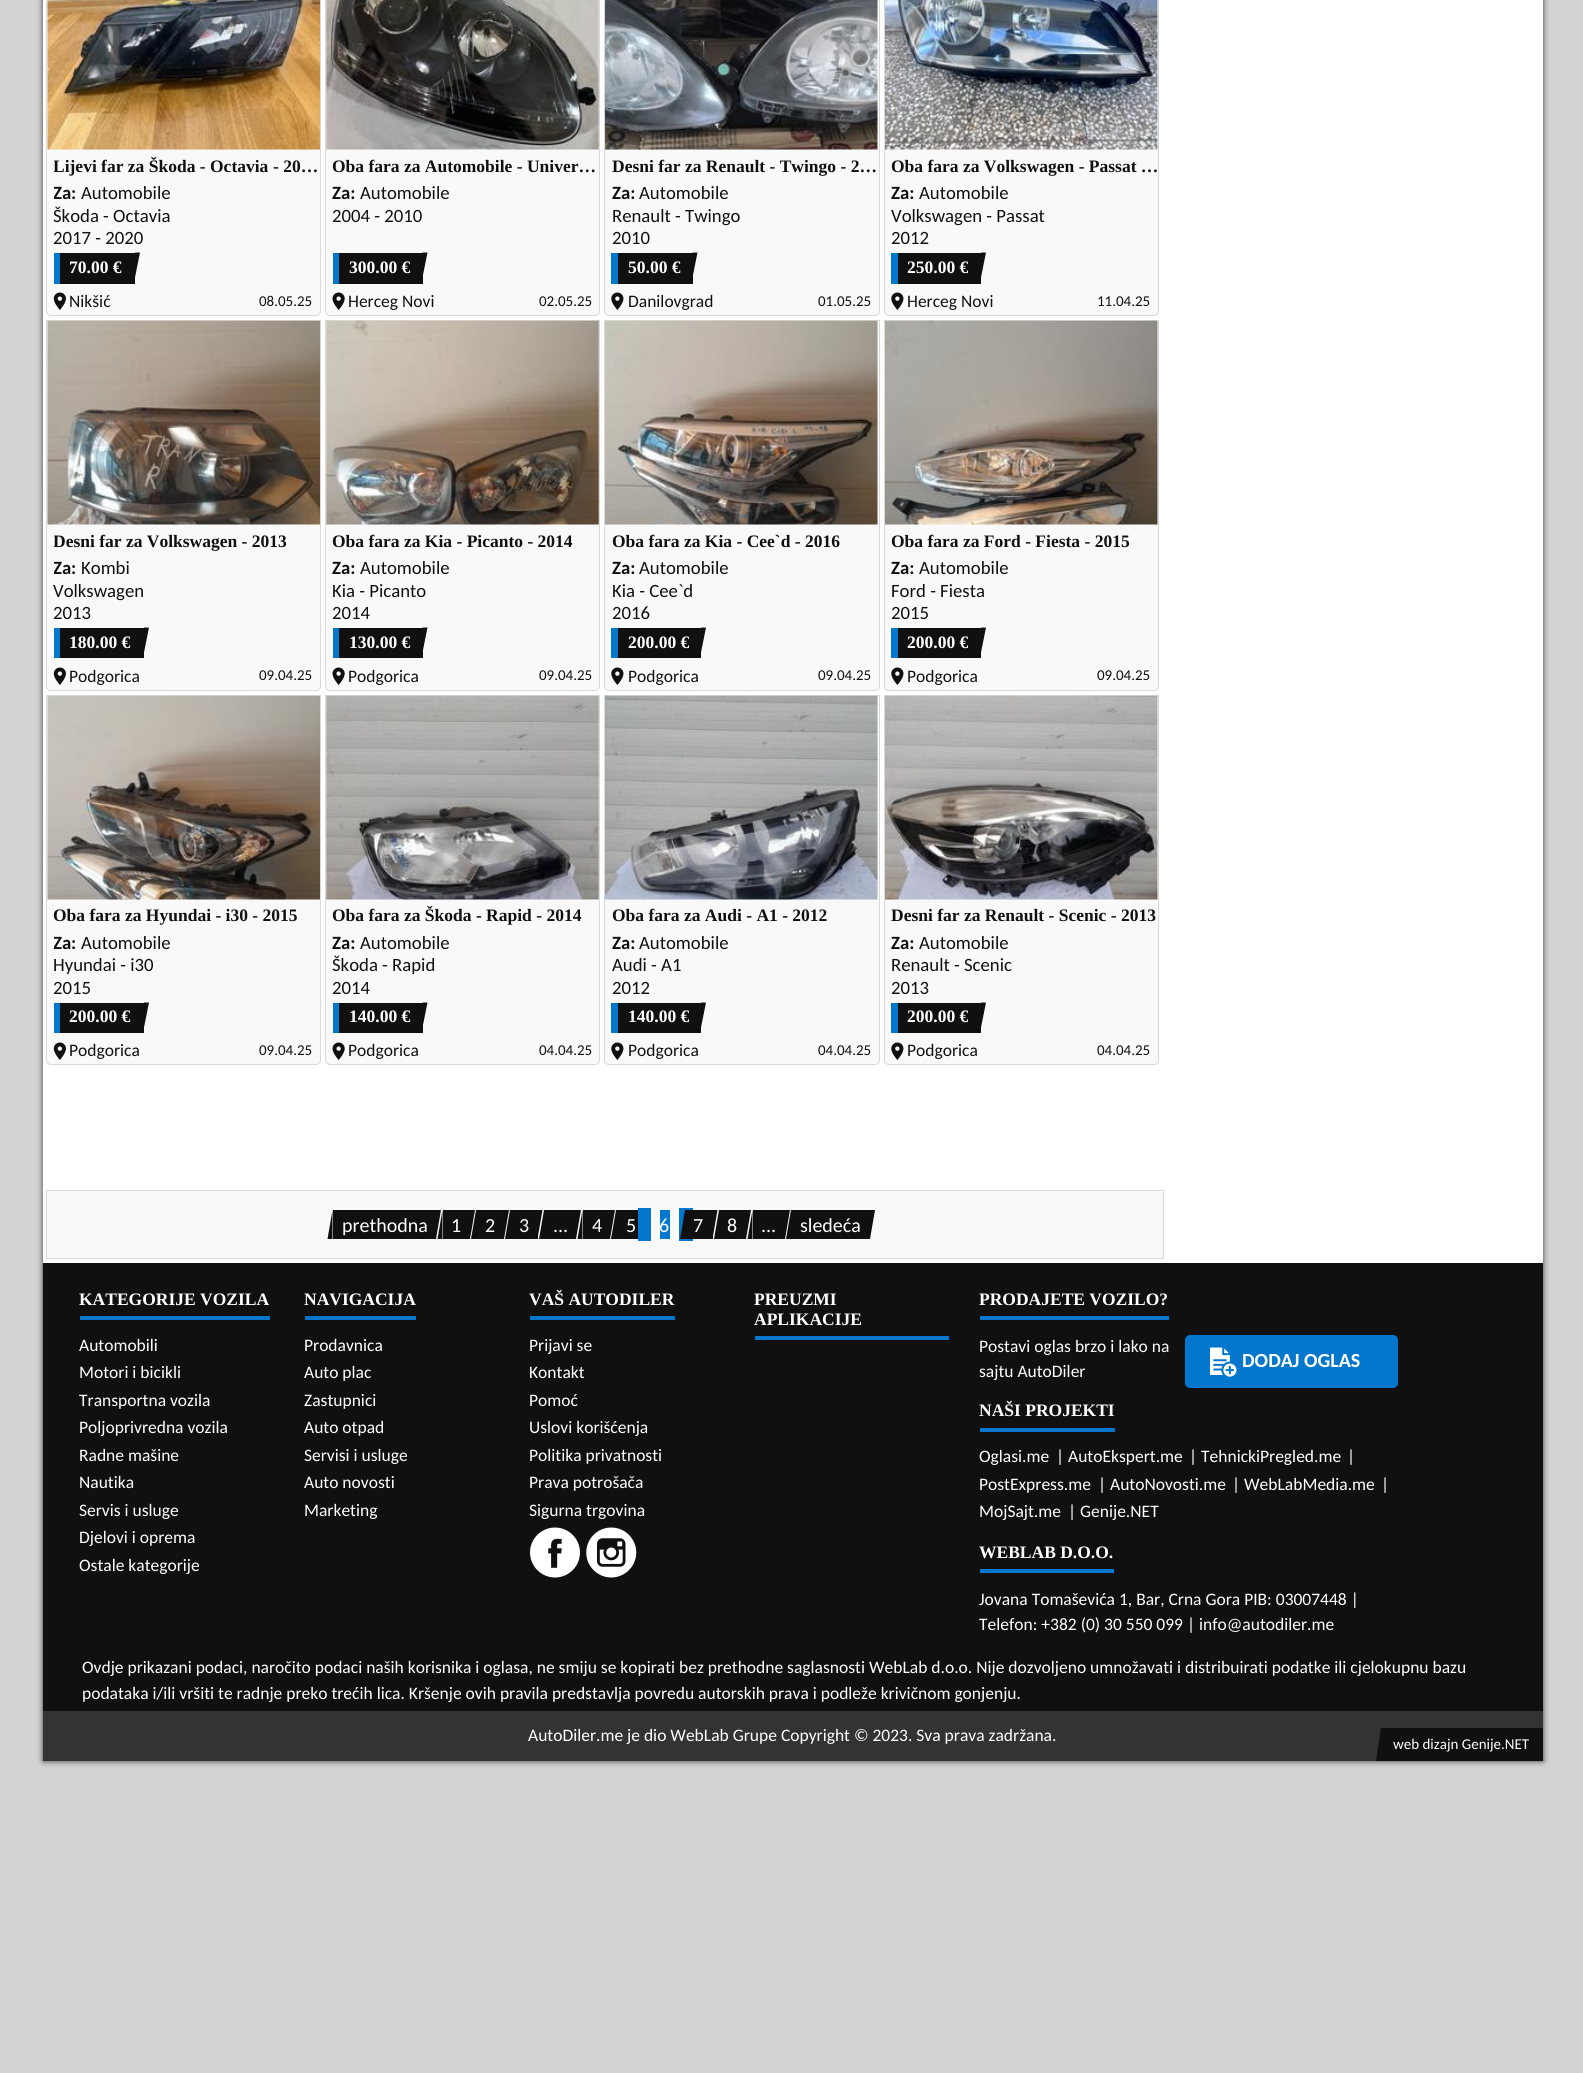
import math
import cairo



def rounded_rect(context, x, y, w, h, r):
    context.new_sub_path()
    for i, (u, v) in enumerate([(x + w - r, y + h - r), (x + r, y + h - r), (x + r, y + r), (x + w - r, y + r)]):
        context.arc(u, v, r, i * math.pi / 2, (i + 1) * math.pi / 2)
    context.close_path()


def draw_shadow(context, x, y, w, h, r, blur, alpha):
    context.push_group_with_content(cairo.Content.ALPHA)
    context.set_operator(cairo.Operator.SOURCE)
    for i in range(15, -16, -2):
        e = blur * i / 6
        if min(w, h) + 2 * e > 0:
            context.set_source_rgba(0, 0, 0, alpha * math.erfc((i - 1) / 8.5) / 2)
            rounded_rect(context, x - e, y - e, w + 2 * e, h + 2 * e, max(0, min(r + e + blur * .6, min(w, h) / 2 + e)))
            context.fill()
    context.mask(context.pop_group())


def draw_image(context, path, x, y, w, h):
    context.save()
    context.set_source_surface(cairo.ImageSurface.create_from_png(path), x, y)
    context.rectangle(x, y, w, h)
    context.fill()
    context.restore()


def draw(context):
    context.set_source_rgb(211 / 255, 211 / 255, 211 / 255)
    context.paint()
    context.set_source_rgb(0, 0, 0)
    draw_shadow(context, 43, -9, 1500, 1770, 0, 3, 0.75)
    context.set_source_rgb(1, 1, 1)
    context.rectangle(43, 0, 1500, 1263)
    context.fill()
    context.set_source_rgb(249 / 255, 249 / 255, 249 / 255)
    context.new_path()
    context.move_to(46.5, -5.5)
    context.line_to(320.5, -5.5)
    context.line_to(320.5, 311)
    context.curve_to(320.5, 313.5, 318.5, 315.5, 316, 315.5)
    context.line_to(51, 315.5)
    context.curve_to(48.5, 315.5, 46.5, 313.5, 46.5, 311)
    context.close_path()
    context.fill_preserve()
    context.set_source_rgb(217 / 255, 217 / 255, 217 / 255)
    context.set_line_width(1)
    context.stroke()
    draw_image(context, "images/1.png", 47, 0, 273, 150)
    context.set_source_rgb(16 / 255, 16 / 255, 16 / 255)
    context.rectangle(60, 253, 75, 31)
    context.fill()
    context.set_source_rgb(3 / 255, 119 / 255, 205 / 255)
    context.rectangle(54, 253, 6, 31)
    context.fill()
    context.set_source_rgb(16 / 255, 16 / 255, 16 / 255)
    context.new_path()
    context.move_to(135, 252.5)
    context.line_to(140, 252.5)
    context.line_to(135, 277.5)
    context.close_path()
    context.fill()
    draw_image(context, "images/2.png", 53, 292, 13, 18)
    context.set_source_rgb(249 / 255, 249 / 255, 249 / 255)
    context.new_path()
    context.move_to(325.5, -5.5)
    context.line_to(599.5, -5.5)
    context.line_to(599.5, 311)
    context.curve_to(599.5, 313.5, 597.5, 315.5, 595, 315.5)
    context.line_to(330, 315.5)
    context.curve_to(327.5, 315.5, 325.5, 313.5, 325.5, 311)
    context.close_path()
    context.fill_preserve()
    context.set_source_rgb(217 / 255, 217 / 255, 217 / 255)
    context.stroke()
    draw_image(context, "images/3.png", 326, 0, 273, 150)
    context.set_source_rgb(16 / 255, 16 / 255, 16 / 255)
    context.rectangle(339, 253, 84, 31)
    context.fill()
    context.set_source_rgb(3 / 255, 119 / 255, 205 / 255)
    context.rectangle(333, 253, 6, 31)
    context.fill()
    context.set_source_rgb(16 / 255, 16 / 255, 16 / 255)
    context.new_path()
    context.move_to(422.5, 252.5)
    context.line_to(427.5, 252.5)
    context.line_to(422.5, 277.5)
    context.close_path()
    context.fill()
    draw_image(context, "images/4.png", 332, 292, 13, 18)
    context.set_source_rgb(249 / 255, 249 / 255, 249 / 255)
    context.new_path()
    context.move_to(604.5, -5.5)
    context.line_to(879.5, -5.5)
    context.line_to(879.5, 311)
    context.curve_to(879.5, 313.5, 877.5, 315.5, 875, 315.5)
    context.line_to(609, 315.5)
    context.curve_to(606.5, 315.5, 604.5, 313.5, 604.5, 311)
    context.close_path()
    context.fill_preserve()
    context.set_source_rgb(217 / 255, 217 / 255, 217 / 255)
    context.stroke()
    draw_image(context, "images/5.png", 605, 0, 273, 150)
    context.set_source_rgb(16 / 255, 16 / 255, 16 / 255)
    context.rectangle(618, 253, 75, 31)
    context.fill()
    context.set_source_rgb(3 / 255, 119 / 255, 205 / 255)
    context.rectangle(611, 253, 7, 31)
    context.fill()
    context.set_source_rgb(16 / 255, 16 / 255, 16 / 255)
    context.new_path()
    context.move_to(692.5, 252.5)
    context.line_to(697.5, 252.5)
    context.line_to(692.5, 277.5)
    context.close_path()
    context.fill()
    draw_image(context, "images/6.png", 611, 292, 13, 18)
    context.set_source_rgb(249 / 255, 249 / 255, 249 / 255)
    context.new_path()
    context.move_to(884.5, -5.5)
    context.line_to(1158.5, -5.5)
    context.line_to(1158.5, 311)
    context.curve_to(1158.5, 313.5, 1156.5, 315.5, 1154, 315.5)
    context.line_to(889, 315.5)
    context.curve_to(886.5, 315.5, 884.5, 313.5, 884.5, 311)
    context.close_path()
    context.fill_preserve()
    context.set_source_rgb(217 / 255, 217 / 255, 217 / 255)
    context.stroke()
    draw_image(context, "images/7.png", 885, 0, 273, 150)
    context.set_source_rgb(16 / 255, 16 / 255, 16 / 255)
    context.rectangle(898, 253, 83, 31)
    context.fill()
    context.set_source_rgb(3 / 255, 119 / 255, 205 / 255)
    context.rectangle(891, 253, 7, 31)
    context.fill()
    context.set_source_rgb(16 / 255, 16 / 255, 16 / 255)
    context.new_path()
    context.move_to(981, 252.5)
    context.line_to(986, 252.5)
    context.line_to(981, 277.5)
    context.close_path()
    context.fill()
    draw_image(context, "images/6.png", 891, 292, 13, 18)
    context.set_source_rgb(249 / 255, 249 / 255, 249 / 255)
    context.new_path()
    context.move_to(46.5, 320.5)
    context.line_to(320.5, 320.5)
    context.line_to(320.5, 686)
    context.curve_to(320.5, 688.5, 318.5, 690.5, 316, 690.5)
    context.line_to(51, 690.5)
    context.curve_to(48.5, 690.5, 46.5, 688.5, 46.5, 686)
    context.close_path()
    context.fill_preserve()
    context.set_source_rgb(217 / 255, 217 / 255, 217 / 255)
    context.stroke()
    draw_image(context, "images/8.png", 47, 320, 273, 205)
    context.set_source_rgb(16 / 255, 16 / 255, 16 / 255)
    context.rectangle(60, 628, 84, 30)
    context.fill()
    context.set_source_rgb(3 / 255, 119 / 255, 205 / 255)
    context.rectangle(54, 628, 6, 30)
    context.fill()
    context.set_source_rgb(16 / 255, 16 / 255, 16 / 255)
    context.new_path()
    context.move_to(144, 627.5)
    context.line_to(149, 627.5)
    context.line_to(144, 652.5)
    context.close_path()
    context.fill()
    draw_image(context, "images/2.png", 53, 667, 13, 18)
    context.set_source_rgb(249 / 255, 249 / 255, 249 / 255)
    context.new_path()
    context.move_to(325.5, 320.5)
    context.line_to(599.5, 320.5)
    context.line_to(599.5, 686)
    context.curve_to(599.5, 688.5, 597.5, 690.5, 595, 690.5)
    context.line_to(330, 690.5)
    context.curve_to(327.5, 690.5, 325.5, 688.5, 325.5, 686)
    context.close_path()
    context.fill_preserve()
    context.set_source_rgb(217 / 255, 217 / 255, 217 / 255)
    context.stroke()
    draw_image(context, "images/9.png", 326, 320, 273, 205)
    context.set_source_rgb(16 / 255, 16 / 255, 16 / 255)
    context.rectangle(339, 628, 84, 30)
    context.fill()
    context.set_source_rgb(3 / 255, 119 / 255, 205 / 255)
    context.rectangle(333, 628, 6, 30)
    context.fill()
    context.set_source_rgb(16 / 255, 16 / 255, 16 / 255)
    context.new_path()
    context.move_to(422.5, 627.5)
    context.line_to(427.5, 627.5)
    context.line_to(422.5, 652.5)
    context.close_path()
    context.fill()
    draw_image(context, "images/4.png", 332, 667, 13, 18)
    context.set_source_rgb(249 / 255, 249 / 255, 249 / 255)
    context.new_path()
    context.move_to(604.5, 320.5)
    context.line_to(879.5, 320.5)
    context.line_to(879.5, 686)
    context.curve_to(879.5, 688.5, 877.5, 690.5, 875, 690.5)
    context.line_to(609, 690.5)
    context.curve_to(606.5, 690.5, 604.5, 688.5, 604.5, 686)
    context.close_path()
    context.fill_preserve()
    context.set_source_rgb(217 / 255, 217 / 255, 217 / 255)
    context.stroke()
    draw_image(context, "images/10.png", 605, 320, 273, 205)
    context.set_source_rgb(16 / 255, 16 / 255, 16 / 255)
    context.rectangle(618, 628, 83, 30)
    context.fill()
    context.set_source_rgb(3 / 255, 119 / 255, 205 / 255)
    context.rectangle(611, 628, 7, 30)
    context.fill()
    context.set_source_rgb(16 / 255, 16 / 255, 16 / 255)
    context.new_path()
    context.move_to(701, 627.5)
    context.line_to(706, 627.5)
    context.line_to(701, 652.5)
    context.close_path()
    context.fill()
    draw_image(context, "images/6.png", 611, 667, 13, 18)
    context.set_source_rgb(249 / 255, 249 / 255, 249 / 255)
    context.new_path()
    context.move_to(884.5, 320.5)
    context.line_to(1158.5, 320.5)
    context.line_to(1158.5, 686)
    context.curve_to(1158.5, 688.5, 1156.5, 690.5, 1154, 690.5)
    context.line_to(889, 690.5)
    context.curve_to(886.5, 690.5, 884.5, 688.5, 884.5, 686)
    context.close_path()
    context.fill_preserve()
    context.set_source_rgb(217 / 255, 217 / 255, 217 / 255)
    context.stroke()
    draw_image(context, "images/11.png", 885, 320, 273, 205)
    context.set_source_rgb(16 / 255, 16 / 255, 16 / 255)
    context.rectangle(898, 628, 83, 30)
    context.fill()
    context.set_source_rgb(3 / 255, 119 / 255, 205 / 255)
    context.rectangle(891, 628, 7, 30)
    context.fill()
    context.set_source_rgb(16 / 255, 16 / 255, 16 / 255)
    context.new_path()
    context.move_to(981, 627.5)
    context.line_to(986, 627.5)
    context.line_to(981, 652.5)
    context.close_path()
    context.fill()
    draw_image(context, "images/6.png", 891, 667, 13, 18)
    context.set_source_rgb(249 / 255, 249 / 255, 249 / 255)
    context.new_path()
    context.move_to(46.5, 695.5)
    context.line_to(320.5, 695.5)
    context.line_to(320.5, 1060)
    context.curve_to(320.5, 1062.5, 318.5, 1064.5, 316, 1064.5)
    context.line_to(51, 1064.5)
    context.curve_to(48.5, 1064.5, 46.5, 1062.5, 46.5, 1060)
    context.close_path()
    context.fill_preserve()
    context.set_source_rgb(217 / 255, 217 / 255, 217 / 255)
    context.stroke()
    draw_image(context, "images/12.png", 47, 695, 273, 205)
    context.set_source_rgb(16 / 255, 16 / 255, 16 / 255)
    context.rectangle(60, 1003, 84, 30)
    context.fill()
    context.set_source_rgb(3 / 255, 119 / 255, 205 / 255)
    context.rectangle(54, 1003, 6, 30)
    context.fill()
    context.set_source_rgb(16 / 255, 16 / 255, 16 / 255)
    context.new_path()
    context.move_to(144, 1002.5)
    context.line_to(149, 1002.5)
    context.line_to(144, 1027.5)
    context.close_path()
    context.fill()
    draw_image(context, "images/2.png", 53, 1042, 13, 18)
    context.set_source_rgb(249 / 255, 249 / 255, 249 / 255)
    context.new_path()
    context.move_to(325.5, 695.5)
    context.line_to(599.5, 695.5)
    context.line_to(599.5, 1060)
    context.curve_to(599.5, 1062.5, 597.5, 1064.5, 595, 1064.5)
    context.line_to(330, 1064.5)
    context.curve_to(327.5, 1064.5, 325.5, 1062.5, 325.5, 1060)
    context.close_path()
    context.fill_preserve()
    context.set_source_rgb(217 / 255, 217 / 255, 217 / 255)
    context.stroke()
    draw_image(context, "images/13.png", 326, 695, 273, 205)
    context.set_source_rgb(16 / 255, 16 / 255, 16 / 255)
    context.rectangle(339, 1003, 84, 30)
    context.fill()
    context.set_source_rgb(3 / 255, 119 / 255, 205 / 255)
    context.rectangle(333, 1003, 6, 30)
    context.fill()
    context.set_source_rgb(16 / 255, 16 / 255, 16 / 255)
    context.new_path()
    context.move_to(422.5, 1002.5)
    context.line_to(427.5, 1002.5)
    context.line_to(422.5, 1027.5)
    context.close_path()
    context.fill()
    draw_image(context, "images/4.png", 332, 1042, 13, 18)
    context.set_source_rgb(249 / 255, 249 / 255, 249 / 255)
    context.new_path()
    context.move_to(604.5, 695.5)
    context.line_to(879.5, 695.5)
    context.line_to(879.5, 1060)
    context.curve_to(879.5, 1062.5, 877.5, 1064.5, 875, 1064.5)
    context.line_to(609, 1064.5)
    context.curve_to(606.5, 1064.5, 604.5, 1062.5, 604.5, 1060)
    context.close_path()
    context.fill_preserve()
    context.set_source_rgb(217 / 255, 217 / 255, 217 / 255)
    context.stroke()
    draw_image(context, "images/14.png", 605, 695, 273, 205)
    context.set_source_rgb(16 / 255, 16 / 255, 16 / 255)
    context.rectangle(618, 1003, 83, 30)
    context.fill()
    context.set_source_rgb(3 / 255, 119 / 255, 205 / 255)
    context.rectangle(611, 1003, 7, 30)
    context.fill()
    context.set_source_rgb(16 / 255, 16 / 255, 16 / 255)
    context.new_path()
    context.move_to(701, 1002.5)
    context.line_to(706, 1002.5)
    context.line_to(701, 1027.5)
    context.close_path()
    context.fill()
    draw_image(context, "images/6.png", 611, 1042, 13, 18)
    context.set_source_rgb(249 / 255, 249 / 255, 249 / 255)
    context.new_path()
    context.move_to(884.5, 695.5)
    context.line_to(1158.5, 695.5)
    context.line_to(1158.5, 1060)
    context.curve_to(1158.5, 1062.5, 1156.5, 1064.5, 1154, 1064.5)
    context.line_to(889, 1064.5)
    context.curve_to(886.5, 1064.5, 884.5, 1062.5, 884.5, 1060)
    context.close_path()
    context.fill_preserve()
    context.set_source_rgb(217 / 255, 217 / 255, 217 / 255)
    context.stroke()
    draw_image(context, "images/15.png", 885, 695, 273, 205)
    context.set_source_rgb(16 / 255, 16 / 255, 16 / 255)
    context.rectangle(898, 1003, 83, 30)
    context.fill()
    context.set_source_rgb(3 / 255, 119 / 255, 205 / 255)
    context.rectangle(891, 1003, 7, 30)
    context.fill()
    context.set_source_rgb(16 / 255, 16 / 255, 16 / 255)
    context.new_path()
    context.move_to(981, 1002.5)
    context.line_to(986, 1002.5)
    context.line_to(981, 1027.5)
    context.close_path()
    context.fill()
    draw_image(context, "images/6.png", 891, 1042, 13, 18)
    context.set_source_rgb(249 / 255, 249 / 255, 249 / 255)
    context.rectangle(46.5, 1190.5, 1117, 68)
    context.fill_preserve()
    context.set_source_rgb(217 / 255, 217 / 255, 217 / 255)
    context.stroke()
    context.set_source_rgb(16 / 255, 16 / 255, 16 / 255)
    context.rectangle(333, 1210, 103, 29)
    context.fill()
    context.new_path()
    context.move_to(332.5, 1239)
    context.line_to(327.5, 1239)
    context.line_to(332.5, 1210)
    context.close_path()
    context.fill()
    context.new_path()
    context.move_to(436, 1210)
    context.line_to(441, 1210)
    context.line_to(436, 1239)
    context.close_path()
    context.fill()
    context.rectangle(443, 1210, 27, 29)
    context.fill()
    context.rectangle(476, 1210, 28, 29)
    context.fill()
    context.rectangle(510, 1210, 28, 29)
    context.fill()
    context.rectangle(544, 1210, 32, 29)
    context.fill()
    context.rectangle(583, 1210, 27, 29)
    context.fill()
    context.rectangle(616, 1210, 22, 29)
    context.fill()
    context.set_source_rgb(3 / 255, 119 / 255, 205 / 255)
    context.rectangle(638, 1208, 13, 33)
    context.fill()
    context.rectangle(660, 1210, 10, 29)
    context.fill()
    context.rectangle(679, 1208, 14, 33)
    context.fill()
    context.set_source_rgb(16 / 255, 16 / 255, 16 / 255)
    context.rectangle(685, 1210, 28, 29)
    context.fill()
    context.rectangle(719, 1210, 27, 29)
    context.fill()
    context.rectangle(753, 1210, 32, 29)
    context.fill()
    context.rectangle(791, 1210, 79, 29)
    context.fill()
    context.new_path()
    context.move_to(870, 1210)
    context.line_to(875, 1210)
    context.line_to(870, 1239)
    context.close_path()
    context.fill()
    context.rectangle(43, 1263, 1500, 448)
    context.fill()
    context.set_source_rgb(3 / 255, 119 / 255, 205 / 255)
    context.rectangle(80, 1316, 190, 4)
    context.fill()
    context.rectangle(305, 1316, 111, 4)
    context.fill()
    context.rectangle(530, 1316, 145, 4)
    context.fill()
    draw_image(context, "images/16.png", 530, 1527, 50, 51)
    draw_image(context, "images/17.png", 586, 1527, 51, 51)
    context.rectangle(755, 1336, 194, 4)
    context.fill()
    context.rectangle(980, 1316, 189, 4)
    context.fill()
    rounded_rect(context, 1185, 1335, 213, 53, 5)
    context.fill()
    draw_image(context, "images/18.png", 1210, 1347, 27, 30)
    context.rectangle(980, 1428, 135, 4)
    context.fill()
    context.rectangle(980, 1569, 134, 4)
    context.fill()
    context.set_source_rgb(51 / 255, 51 / 255, 51 / 255)
    context.rectangle(43, 1711, 1500, 50)
    context.fill()
    context.set_source_rgb(16 / 255, 16 / 255, 16 / 255)
    context.rectangle(1381, 1728, 162, 33)
    context.fill()
    context.new_path()
    context.move_to(1381, 1761)
    context.line_to(1376, 1761)
    context.line_to(1381, 1727.5)
    context.close_path()
    context.fill()
    context.save()
    context.rectangle(54, 156, 266, 20)
    context.clip()
    context.select_font_face("Liberation Serif", cairo.FontSlant.NORMAL, cairo.FontWeight.BOLD)
    context.set_font_size(17.5)
    context.move_to(53, 172)
    context.show_text("Lijevi far za Škoda - Octavia")
    context.restore()
    context.select_font_face("Liberation Serif", cairo.FontSlant.NORMAL, cairo.FontWeight.BOLD)
    context.set_font_size(17.5)
    context.move_to(273, 172)
    context.show_text("- 20…")
    context.save()
    context.rectangle(54, 181, 266, 23)
    context.clip()
    context.select_font_face("Carlito", cairo.FontSlant.NORMAL, cairo.FontWeight.BOLD)
    context.set_font_size(18.75)
    context.move_to(53, 199)
    context.show_text("Za")
    context.restore()
    context.select_font_face("Carlito", cairo.FontSlant.NORMAL, cairo.FontWeight.BOLD)
    context.set_font_size(18.75)
    context.move_to(71, 199)
    context.show_text(":")
    context.select_font_face("Carlito")
    context.move_to(81, 199)
    context.show_text("Automobile")
    context.move_to(53, 222)
    context.show_text("Škoda - Octavia")
    context.move_to(53, 244)
    context.show_text("2017 - 2020")
    context.select_font_face("Liberation Serif", cairo.FontSlant.NORMAL, cairo.FontWeight.BOLD)
    context.set_font_size(17.5)
    context.set_source_rgb(1, 1, 1)
    context.move_to(69, 273)
    context.show_text("70.00 €")
    context.select_font_face("Carlito")
    context.set_source_rgb(16 / 255, 16 / 255, 16 / 255)
    context.move_to(69, 307)
    context.show_text("Nikšić")
    context.set_font_size(15)
    context.move_to(259, 306)
    context.show_text("08.05.25")
    context.select_font_face("Liberation Serif", cairo.FontSlant.NORMAL, cairo.FontWeight.BOLD)
    context.set_font_size(17.5)
    context.move_to(332, 172)
    context.show_text("Oba fara za Automobile - Univer…")
    context.select_font_face("Carlito", cairo.FontSlant.NORMAL, cairo.FontWeight.BOLD)
    context.set_font_size(18.75)
    context.move_to(332, 199)
    context.show_text("Za:")
    context.select_font_face("Carlito")
    context.move_to(360, 199)
    context.show_text("Automobile")
    context.move_to(332, 222)
    context.show_text("2004 - 2010")
    context.select_font_face("Liberation Serif", cairo.FontSlant.NORMAL, cairo.FontWeight.BOLD)
    context.set_font_size(17.5)
    context.set_source_rgb(1, 1, 1)
    context.move_to(349, 273)
    context.show_text("300.00 €")
    context.select_font_face("Carlito")
    context.set_source_rgb(16 / 255, 16 / 255, 16 / 255)
    context.move_to(348, 307)
    context.show_text("Herceg Novi")
    context.set_font_size(15)
    context.move_to(539, 306)
    context.show_text("02.05.25")
    context.select_font_face("Liberation Serif", cairo.FontSlant.NORMAL, cairo.FontWeight.BOLD)
    context.set_font_size(17.5)
    context.move_to(612, 172)
    context.show_text("Desni far za Renault - Twingo - 2…")
    context.select_font_face("Carlito", cairo.FontSlant.NORMAL, cairo.FontWeight.BOLD)
    context.set_font_size(18.75)
    context.move_to(612, 199)
    context.show_text("Za:")
    context.select_font_face("Carlito")
    context.move_to(639, 199)
    context.show_text("Automobile")
    context.move_to(612, 222)
    context.show_text("Renault - Twingo")
    context.move_to(612, 244)
    context.show_text("2010")
    context.select_font_face("Liberation Serif", cairo.FontSlant.NORMAL, cairo.FontWeight.BOLD)
    context.set_font_size(17.5)
    context.set_source_rgb(1, 1, 1)
    context.move_to(628, 273)
    context.show_text("50.00 €")
    context.select_font_face("Carlito")
    context.set_source_rgb(16 / 255, 16 / 255, 16 / 255)
    context.move_to(628, 307)
    context.show_text("Danilovgrad")
    context.set_font_size(15)
    context.move_to(818, 306)
    context.show_text("01.05.25")
    context.select_font_face("Liberation Serif", cairo.FontSlant.NORMAL, cairo.FontWeight.BOLD)
    context.set_font_size(17.5)
    context.move_to(891, 172)
    context.show_text("Oba fara za Volkswagen - Passat …")
    context.select_font_face("Carlito", cairo.FontSlant.NORMAL, cairo.FontWeight.BOLD)
    context.set_font_size(18.75)
    context.move_to(891, 199)
    context.show_text("Za:")
    context.select_font_face("Carlito")
    context.move_to(919, 199)
    context.show_text("Automobile")
    context.move_to(891, 222)
    context.show_text("Volkswagen - Passat")
    context.move_to(891, 244)
    context.show_text("2012")
    context.select_font_face("Liberation Serif", cairo.FontSlant.NORMAL, cairo.FontWeight.BOLD)
    context.set_font_size(17.5)
    context.set_source_rgb(1, 1, 1)
    context.move_to(907, 273)
    context.show_text("250.00 €")
    context.select_font_face("Carlito")
    context.set_source_rgb(16 / 255, 16 / 255, 16 / 255)
    context.move_to(907, 307)
    context.show_text("Herceg Novi")
    context.set_font_size(15)
    context.move_to(1097, 306)
    context.show_text("11.04.25")
    context.save()
    context.rectangle(54, 531, 266, 20)
    context.clip()
    context.select_font_face("Liberation Serif", cairo.FontSlant.NORMAL, cairo.FontWeight.BOLD)
    context.set_font_size(17.5)
    context.move_to(53, 547)
    context.show_text("Desni far za Volkswagen - 2013")
    context.restore()
    context.save()
    context.rectangle(54, 556, 266, 23)
    context.clip()
    context.select_font_face("Carlito", cairo.FontSlant.NORMAL, cairo.FontWeight.BOLD)
    context.set_font_size(18.75)
    context.move_to(53, 574)
    context.show_text("Za")
    context.restore()
    context.select_font_face("Carlito", cairo.FontSlant.NORMAL, cairo.FontWeight.BOLD)
    context.set_font_size(18.75)
    context.move_to(71, 574)
    context.show_text(":")
    context.select_font_face("Carlito")
    context.move_to(81, 574)
    context.show_text("Kombi")
    context.move_to(53, 597)
    context.show_text("Volkswagen")
    context.move_to(53, 619)
    context.show_text("2013")
    context.select_font_face("Liberation Serif", cairo.FontSlant.NORMAL, cairo.FontWeight.BOLD)
    context.set_font_size(17.5)
    context.set_source_rgb(1, 1, 1)
    context.move_to(69, 648)
    context.show_text("180.00 €")
    context.select_font_face("Carlito")
    context.set_source_rgb(16 / 255, 16 / 255, 16 / 255)
    context.move_to(69, 682)
    context.show_text("Podgorica")
    context.set_font_size(15)
    context.move_to(259, 680)
    context.show_text("09.04.25")
    context.select_font_face("Liberation Serif", cairo.FontSlant.NORMAL, cairo.FontWeight.BOLD)
    context.set_font_size(17.5)
    context.move_to(332, 547)
    context.show_text("Oba fara za Kia - Picanto - 2014")
    context.select_font_face("Carlito", cairo.FontSlant.NORMAL, cairo.FontWeight.BOLD)
    context.set_font_size(18.75)
    context.move_to(332, 574)
    context.show_text("Za:")
    context.select_font_face("Carlito")
    context.move_to(360, 574)
    context.show_text("Automobile")
    context.move_to(332, 597)
    context.show_text("Kia - Picanto")
    context.move_to(332, 619)
    context.show_text("2014")
    context.select_font_face("Liberation Serif", cairo.FontSlant.NORMAL, cairo.FontWeight.BOLD)
    context.set_font_size(17.5)
    context.set_source_rgb(1, 1, 1)
    context.move_to(349, 648)
    context.show_text("130.00 €")
    context.select_font_face("Carlito")
    context.set_source_rgb(16 / 255, 16 / 255, 16 / 255)
    context.move_to(348, 682)
    context.show_text("Podgorica")
    context.set_font_size(15)
    context.move_to(539, 680)
    context.show_text("09.04.25")
    context.select_font_face("Liberation Serif", cairo.FontSlant.NORMAL, cairo.FontWeight.BOLD)
    context.set_font_size(17.5)
    context.move_to(612, 547)
    context.show_text("Oba fara za Kia - Cee`d - 2016")
    context.select_font_face("Carlito", cairo.FontSlant.NORMAL, cairo.FontWeight.BOLD)
    context.set_font_size(18.75)
    context.move_to(612, 574)
    context.show_text("Za:")
    context.select_font_face("Carlito")
    context.move_to(639, 574)
    context.show_text("Automobile")
    context.move_to(612, 597)
    context.show_text("Kia - Cee`d")
    context.move_to(612, 619)
    context.show_text("2016")
    context.select_font_face("Liberation Serif", cairo.FontSlant.NORMAL, cairo.FontWeight.BOLD)
    context.set_font_size(17.5)
    context.set_source_rgb(1, 1, 1)
    context.move_to(628, 648)
    context.show_text("200.00 €")
    context.select_font_face("Carlito")
    context.set_source_rgb(16 / 255, 16 / 255, 16 / 255)
    context.move_to(628, 682)
    context.show_text("Podgorica")
    context.set_font_size(15)
    context.move_to(818, 680)
    context.show_text("09.04.25")
    context.select_font_face("Liberation Serif", cairo.FontSlant.NORMAL, cairo.FontWeight.BOLD)
    context.set_font_size(17.5)
    context.move_to(891, 547)
    context.show_text("Oba fara za Ford - Fiesta - 2015")
    context.select_font_face("Carlito", cairo.FontSlant.NORMAL, cairo.FontWeight.BOLD)
    context.set_font_size(18.75)
    context.move_to(891, 574)
    context.show_text("Za:")
    context.select_font_face("Carlito")
    context.move_to(919, 574)
    context.show_text("Automobile")
    context.move_to(891, 597)
    context.show_text("Ford - Fiesta")
    context.move_to(891, 619)
    context.show_text("2015")
    context.select_font_face("Liberation Serif", cairo.FontSlant.NORMAL, cairo.FontWeight.BOLD)
    context.set_font_size(17.5)
    context.set_source_rgb(1, 1, 1)
    context.move_to(907, 648)
    context.show_text("200.00 €")
    context.select_font_face("Carlito")
    context.set_source_rgb(16 / 255, 16 / 255, 16 / 255)
    context.move_to(907, 682)
    context.show_text("Podgorica")
    context.set_font_size(15)
    context.move_to(1097, 680)
    context.show_text("09.04.25")
    context.select_font_face("Liberation Serif", cairo.FontSlant.NORMAL, cairo.FontWeight.BOLD)
    context.set_font_size(17.5)
    context.move_to(53, 921)
    context.show_text("Oba fara za Hyundai - i30 - 2015")
    context.save()
    context.rectangle(54, 931, 266, 23)
    context.clip()
    context.select_font_face("Carlito", cairo.FontSlant.NORMAL, cairo.FontWeight.BOLD)
    context.set_font_size(18.75)
    context.move_to(53, 949)
    context.show_text("Za")
    context.restore()
    context.select_font_face("Carlito", cairo.FontSlant.NORMAL, cairo.FontWeight.BOLD)
    context.set_font_size(18.75)
    context.move_to(71, 949)
    context.show_text(":")
    context.select_font_face("Carlito")
    context.move_to(81, 949)
    context.show_text("Automobile")
    context.move_to(53, 971)
    context.show_text("Hyundai - i30")
    context.move_to(53, 994)
    context.show_text("2015")
    context.select_font_face("Liberation Serif", cairo.FontSlant.NORMAL, cairo.FontWeight.BOLD)
    context.set_font_size(17.5)
    context.set_source_rgb(1, 1, 1)
    context.move_to(69, 1022)
    context.show_text("200.00 €")
    context.select_font_face("Carlito")
    context.set_source_rgb(16 / 255, 16 / 255, 16 / 255)
    context.move_to(69, 1056)
    context.show_text("Podgorica")
    context.set_font_size(15)
    context.move_to(259, 1055)
    context.show_text("09.04.25")
    context.select_font_face("Liberation Serif", cairo.FontSlant.NORMAL, cairo.FontWeight.BOLD)
    context.set_font_size(17.5)
    context.move_to(332, 921)
    context.show_text("Oba fara za Škoda - Rapid - 2014")
    context.select_font_face("Carlito", cairo.FontSlant.NORMAL, cairo.FontWeight.BOLD)
    context.set_font_size(18.75)
    context.move_to(332, 949)
    context.show_text("Za:")
    context.select_font_face("Carlito")
    context.move_to(360, 949)
    context.show_text("Automobile")
    context.move_to(332, 971)
    context.show_text("Škoda - Rapid")
    context.move_to(332, 994)
    context.show_text("2014")
    context.select_font_face("Liberation Serif", cairo.FontSlant.NORMAL, cairo.FontWeight.BOLD)
    context.set_font_size(17.5)
    context.set_source_rgb(1, 1, 1)
    context.move_to(349, 1022)
    context.show_text("140.00 €")
    context.select_font_face("Carlito")
    context.set_source_rgb(16 / 255, 16 / 255, 16 / 255)
    context.move_to(348, 1056)
    context.show_text("Podgorica")
    context.set_font_size(15)
    context.move_to(539, 1055)
    context.show_text("04.04.25")
    context.select_font_face("Liberation Serif", cairo.FontSlant.NORMAL, cairo.FontWeight.BOLD)
    context.set_font_size(17.5)
    context.move_to(612, 921)
    context.show_text("Oba fara za Audi - A1 - 2012")
    context.select_font_face("Carlito", cairo.FontSlant.NORMAL, cairo.FontWeight.BOLD)
    context.set_font_size(18.75)
    context.move_to(612, 949)
    context.show_text("Za:")
    context.select_font_face("Carlito")
    context.move_to(639, 949)
    context.show_text("Automobile")
    context.move_to(612, 971)
    context.show_text("Audi - A1")
    context.move_to(612, 994)
    context.show_text("2012")
    context.select_font_face("Liberation Serif", cairo.FontSlant.NORMAL, cairo.FontWeight.BOLD)
    context.set_font_size(17.5)
    context.set_source_rgb(1, 1, 1)
    context.move_to(628, 1022)
    context.show_text("140.00 €")
    context.select_font_face("Carlito")
    context.set_source_rgb(16 / 255, 16 / 255, 16 / 255)
    context.move_to(628, 1056)
    context.show_text("Podgorica")
    context.set_font_size(15)
    context.move_to(818, 1055)
    context.show_text("04.04.25")
    context.select_font_face("Liberation Serif", cairo.FontSlant.NORMAL, cairo.FontWeight.BOLD)
    context.set_font_size(17.5)
    context.move_to(891, 921)
    context.show_text("Desni far za Renault - Scenic - 2013")
    context.select_font_face("Carlito", cairo.FontSlant.NORMAL, cairo.FontWeight.BOLD)
    context.set_font_size(18.75)
    context.move_to(891, 949)
    context.show_text("Za:")
    context.select_font_face("Carlito")
    context.move_to(919, 949)
    context.show_text("Automobile")
    context.move_to(891, 971)
    context.show_text("Renault - Scenic")
    context.move_to(891, 994)
    context.show_text("2013")
    context.select_font_face("Liberation Serif", cairo.FontSlant.NORMAL, cairo.FontWeight.BOLD)
    context.set_font_size(17.5)
    context.set_source_rgb(1, 1, 1)
    context.move_to(907, 1022)
    context.show_text("200.00 €")
    context.select_font_face("Carlito")
    context.set_source_rgb(16 / 255, 16 / 255, 16 / 255)
    context.move_to(907, 1056)
    context.show_text("Podgorica")
    context.set_font_size(15)
    context.move_to(1097, 1055)
    context.show_text("04.04.25")
    context.set_font_size(20)
    context.set_source_rgb(1, 1, 1)
    context.move_to(342, 1232)
    context.show_text("prethodna")
    context.move_to(451, 1232)
    context.show_text("1")
    context.set_source_rgb(16 / 255, 16 / 255, 16 / 255)
    context.new_path()
    context.move_to(442.5, 1239)
    context.line_to(437.5, 1239)
    context.line_to(442.5, 1210)
    context.close_path()
    context.move_to(470, 1210)
    context.line_to(475, 1210)
    context.line_to(470, 1239)
    context.close_path()
    context.fill()
    context.set_source_rgb(1, 1, 1)
    context.move_to(485, 1232)
    context.show_text("2")
    context.set_source_rgb(16 / 255, 16 / 255, 16 / 255)
    context.new_path()
    context.move_to(476, 1239)
    context.line_to(471, 1239)
    context.line_to(476, 1210)
    context.close_path()
    context.move_to(504, 1210)
    context.line_to(509, 1210)
    context.line_to(504, 1239)
    context.close_path()
    context.fill()
    context.set_source_rgb(1, 1, 1)
    context.move_to(519, 1232)
    context.show_text("3")
    context.set_source_rgb(16 / 255, 16 / 255, 16 / 255)
    context.new_path()
    context.move_to(510, 1239)
    context.line_to(505, 1239)
    context.line_to(510, 1210)
    context.close_path()
    context.move_to(537.5, 1210)
    context.line_to(542.5, 1210)
    context.line_to(537.5, 1239)
    context.close_path()
    context.fill()
    context.set_source_rgb(1, 1, 1)
    context.move_to(553, 1232)
    context.show_text("...")
    context.set_source_rgb(16 / 255, 16 / 255, 16 / 255)
    context.new_path()
    context.move_to(544, 1239)
    context.line_to(539, 1239)
    context.line_to(544, 1210)
    context.close_path()
    context.move_to(576, 1210)
    context.line_to(581, 1210)
    context.line_to(576, 1239)
    context.close_path()
    context.fill()
    context.set_source_rgb(1, 1, 1)
    context.move_to(592, 1232)
    context.show_text("4")
    context.set_source_rgb(16 / 255, 16 / 255, 16 / 255)
    context.new_path()
    context.move_to(582.5, 1239)
    context.line_to(577.5, 1239)
    context.line_to(582.5, 1210)
    context.close_path()
    context.move_to(610, 1210)
    context.line_to(615, 1210)
    context.line_to(610, 1239)
    context.close_path()
    context.fill()
    context.new_path()
    context.move_to(616, 1239)
    context.line_to(611, 1239)
    context.line_to(616, 1210)
    context.close_path()
    context.fill()
    context.set_source_rgb(1, 1, 1)
    context.move_to(626, 1232)
    context.show_text("5")
    context.move_to(659, 1232)
    context.show_text("6")
    context.move_to(693, 1232)
    context.show_text("7")
    context.set_source_rgb(16 / 255, 16 / 255, 16 / 255)
    context.new_path()
    context.move_to(685, 1239)
    context.line_to(680, 1239)
    context.line_to(685, 1210)
    context.close_path()
    context.move_to(712.5, 1210)
    context.line_to(717.5, 1210)
    context.line_to(712.5, 1239)
    context.close_path()
    context.fill()
    context.set_source_rgb(1, 1, 1)
    context.move_to(727, 1232)
    context.show_text("8")
    context.set_source_rgb(16 / 255, 16 / 255, 16 / 255)
    context.new_path()
    context.move_to(719, 1239)
    context.line_to(714, 1239)
    context.line_to(719, 1210)
    context.close_path()
    context.move_to(746, 1210)
    context.line_to(751, 1210)
    context.line_to(746, 1239)
    context.close_path()
    context.fill()
    context.set_source_rgb(1, 1, 1)
    context.move_to(761, 1232)
    context.show_text("...")
    context.set_source_rgb(16 / 255, 16 / 255, 16 / 255)
    context.new_path()
    context.move_to(752.5, 1239)
    context.line_to(747.5, 1239)
    context.line_to(752.5, 1210)
    context.close_path()
    context.move_to(785, 1210)
    context.line_to(790, 1210)
    context.line_to(785, 1239)
    context.close_path()
    context.fill()
    context.new_path()
    context.move_to(791, 1239)
    context.line_to(786, 1239)
    context.line_to(791, 1210)
    context.close_path()
    context.fill()
    context.set_source_rgb(1, 1, 1)
    context.move_to(800, 1232)
    context.show_text("sledeća")
    context.select_font_face("Liberation Serif", cairo.FontSlant.NORMAL, cairo.FontWeight.BOLD)
    context.set_font_size(17.5)
    context.move_to(79, 1305)
    context.show_text("KATEGORIJE VOZILA")
    context.select_font_face("Carlito")
    context.move_to(79, 1351)
    context.show_text("Automobili")
    context.move_to(79, 1378)
    context.show_text("Motori i bicikli")
    context.move_to(79, 1406)
    context.show_text("Transportna vozila")
    context.move_to(79, 1433)
    context.show_text("Poljoprivredna vozila")
    context.move_to(79, 1461)
    context.show_text("Radne mašine")
    context.move_to(79, 1488)
    context.show_text("Nautika")
    context.move_to(79, 1516)
    context.show_text("Servis i usluge")
    context.move_to(79, 1543)
    context.show_text("Djelovi i oprema")
    context.move_to(79, 1571)
    context.show_text("Ostale kategorije")
    context.select_font_face("Liberation Serif", cairo.FontSlant.NORMAL, cairo.FontWeight.BOLD)
    context.move_to(304, 1305)
    context.show_text("NAVIGACIJA")
    context.select_font_face("Carlito")
    context.move_to(304, 1351)
    context.show_text("Prodavnica")
    context.move_to(304, 1378)
    context.show_text("Auto plac")
    context.move_to(304, 1406)
    context.show_text("Zastupnici")
    context.move_to(304, 1433)
    context.show_text("Auto otpad")
    context.move_to(304, 1461)
    context.show_text("Servisi i usluge")
    context.move_to(304, 1488)
    context.show_text("Auto novosti")
    context.move_to(304, 1516)
    context.show_text("Marketing")
    context.select_font_face("Liberation Serif", cairo.FontSlant.NORMAL, cairo.FontWeight.BOLD)
    context.move_to(529, 1305)
    context.show_text("VAŠ AUTODILER")
    context.select_font_face("Carlito")
    context.move_to(529, 1351)
    context.show_text("Prijavi se")
    context.move_to(529, 1378)
    context.show_text("Kontakt")
    context.move_to(529, 1406)
    context.show_text("Pomoć")
    context.move_to(529, 1433)
    context.show_text("Uslovi korišćenja")
    context.move_to(529, 1461)
    context.show_text("Politika privatnosti")
    context.move_to(529, 1488)
    context.show_text("Prava potrošača")
    context.move_to(529, 1516)
    context.show_text("Sigurna trgovina")
    context.select_font_face("Liberation Serif", cairo.FontSlant.NORMAL, cairo.FontWeight.BOLD)
    context.move_to(754, 1305)
    context.show_text("PREUZMI")
    context.move_to(754, 1325)
    context.show_text("APLIKACIJE")
    context.move_to(979, 1305)
    context.show_text("PRODAJETE VOZILO?")
    context.select_font_face("Carlito")
    context.move_to(979, 1352)
    context.show_text("Postavi oglas brzo i lako na")
    context.move_to(979, 1377)
    context.show_text("sajtu AutoDiler")
    context.select_font_face("Carlito", cairo.FontSlant.NORMAL, cairo.FontWeight.BOLD)
    context.set_font_size(20)
    context.move_to(1242, 1367)
    context.show_text("DODAJ OGLAS")
    context.select_font_face("Liberation Serif", cairo.FontSlant.NORMAL, cairo.FontWeight.BOLD)
    context.set_font_size(17.5)
    context.move_to(979, 1416)
    context.show_text("NAŠI PROJEKTI")
    context.select_font_face("Carlito")
    context.move_to(979, 1462)
    context.show_text("Oglasi.me")
    context.move_to(1056, 1462)
    context.show_text("| AutoEkspert.me")
    context.move_to(1189, 1462)
    context.show_text("| TehnickiPregled.me")
    context.move_to(1347, 1462)
    context.show_text("|")
    context.move_to(979, 1490)
    context.show_text("PostExpress.me")
    context.move_to(1098, 1490)
    context.show_text("| AutoNovosti.me")
    context.move_to(1232, 1490)
    context.show_text("| WebLabMedia.me")
    context.move_to(1381, 1490)
    context.show_text("|")
    context.move_to(979, 1517)
    context.show_text("MojSajt.me")
    context.move_to(1068, 1517)
    context.show_text("| Genije.NET")
    context.select_font_face("Liberation Serif", cairo.FontSlant.NORMAL, cairo.FontWeight.BOLD)
    context.move_to(979, 1558)
    context.show_text("WEBLAB D.O.O.")
    context.select_font_face("Carlito")
    context.move_to(979, 1605)
    context.show_text("Jovana Tomaševića 1, Bar, Crna Gora PIB: 03007448 |")
    context.move_to(979, 1630)
    context.show_text("Telefon: +382 (0) 30 550 099 | info@autodiler.me")
    context.move_to(82, 1673)
    context.show_text("Ovdje prikazani podaci, naročito podaci naših korisnika i oglasa, ne smiju se kopirati bez prethodne saglasnosti WebLab d.o.o. Nije dozvoljeno umnožavati i distribuirati podatke ili cjelokupnu bazu")
    context.move_to(82, 1699)
    context.show_text("podataka i/ili vršiti te radnje preko trećih lica. Kršenje ovih pravila predstavlja povredu autorskih prava i podleže krivičnom gonjenju.")
    context.move_to(528, 1741)
    context.show_text("AutoDiler.me je dio WebLab Grupe Copyright © 2023. Sva prava zadržana.")
    context.set_font_size(15)
    context.move_to(1393, 1749)
    context.show_text("web dizajn Genije.NET")


surface = cairo.ImageSurface(cairo.Format.RGB24, 1583, 2073)
context = cairo.Context(surface)
options = cairo.FontOptions()
options.set_hint_metrics(cairo.HintMetrics.OFF)
options.set_hint_style(cairo.HintStyle.NONE)
context.set_font_options(options)
context.set_miter_limit(4)
draw(context)
surface.write_to_png("out.png")
